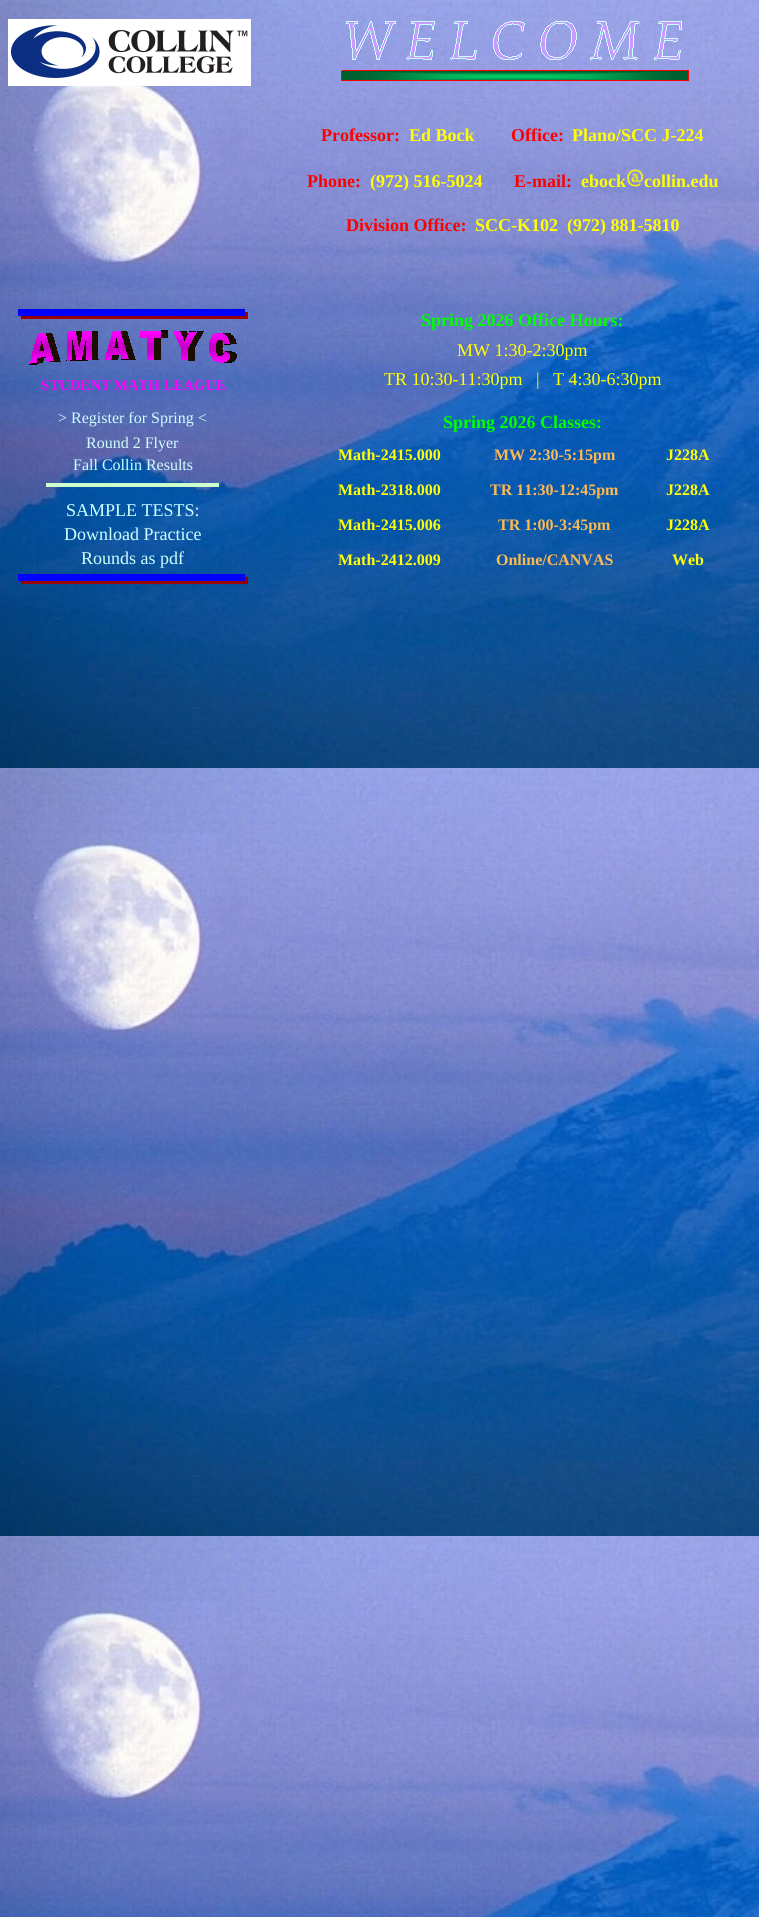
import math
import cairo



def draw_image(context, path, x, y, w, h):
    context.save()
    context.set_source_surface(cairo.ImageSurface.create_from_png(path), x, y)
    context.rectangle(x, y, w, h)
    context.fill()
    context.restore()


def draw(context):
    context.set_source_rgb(1, 1, 1)
    context.paint()
    draw_image(context, "images/1.png", 0, 0, 759, 1917)
    draw_image(context, "images/2.png", 8, 19, 243, 67)
    draw_image(context, "images/3.png", 346, 21, 336, 39)
    draw_image(context, "images/4.png", 341, 70, 348, 11)
    draw_image(context, "images/5.png", 626, 169, 18, 18)
    draw_image(context, "images/6.png", 18, 309, 230, 10)
    draw_image(context, "images/7.png", 29, 330, 208, 35)
    context.set_source_rgb(204 / 255, 1, 204 / 255)
    context.rectangle(46, 483, 173, 4)
    context.fill()
    draw_image(context, "images/8.png", 18, 574, 230, 10)
    context.select_font_face("Liberation Serif", cairo.FontSlant.NORMAL, cairo.FontWeight.BOLD)
    context.set_font_size(18)
    context.set_source_rgb(1, 0, 0)
    context.move_to(321, 141)
    context.show_text("Professor:")
    context.set_source_rgb(1, 1, 0)
    context.move_to(409, 141)
    context.show_text("Ed Bock")
    context.set_source_rgb(1, 0, 0)
    context.move_to(511, 141)
    context.show_text("Office:")
    context.set_source_rgb(1, 1, 0)
    context.move_to(572, 141)
    context.show_text("Plano/SCC J-224")
    context.set_source_rgb(1, 0, 0)
    context.move_to(307, 187)
    context.show_text("Phone:")
    context.set_source_rgb(1, 1, 0)
    context.move_to(370, 187)
    context.show_text("(972) 516-5024")
    context.set_source_rgb(1, 0, 0)
    context.move_to(514, 187)
    context.show_text("E-mail:")
    context.set_source_rgb(1, 1, 0)
    context.move_to(581, 187)
    context.show_text("ebock")
    context.move_to(644, 187)
    context.show_text("collin.edu")
    context.set_source_rgb(1, 0, 0)
    context.move_to(346, 231)
    context.show_text("Division Office:")
    context.set_source_rgb(1, 1, 0)
    context.move_to(475, 231)
    context.show_text("SCC-K102  (972) 881-5810")
    context.set_font_size(14.7)
    context.set_source_rgb(1, 0, 1)
    context.move_to(41, 390)
    context.show_text("STUDENT MATH LEAGUE")
    context.select_font_face("Liberation Serif")
    context.set_font_size(16)
    context.set_source_rgb(204 / 255, 1, 1)
    context.move_to(58, 423)
    context.show_text("> Register for Spring <")
    context.move_to(86, 448)
    context.show_text("Round 2 Flyer")
    context.move_to(73, 470)
    context.show_text("Fall Collin Results")
    context.set_font_size(18)
    context.move_to(66, 516)
    context.show_text("SAMPLE TESTS:")
    context.move_to(64, 540)
    context.show_text("Download Practice")
    context.move_to(81, 564)
    context.show_text("Rounds as pdf")
    context.select_font_face("Liberation Serif", cairo.FontSlant.NORMAL, cairo.FontWeight.BOLD)
    context.set_source_rgb(0, 1, 0)
    context.move_to(421, 326)
    context.show_text("Spring 2026 Office Hours:")
    context.select_font_face("Liberation Serif")
    context.set_source_rgb(1, 1, 0)
    context.move_to(457, 356)
    context.show_text("MW 1:30-2:30pm")
    context.move_to(384, 385)
    context.show_text("TR 10:30-11:30pm")
    context.move_to(536, 385)
    context.show_text("|   T 4:30-6:30pm")
    context.select_font_face("Liberation Serif", cairo.FontSlant.NORMAL, cairo.FontWeight.BOLD)
    context.set_source_rgb(0, 1, 0)
    context.move_to(443, 428)
    context.show_text("Spring 2026 Classes:")
    context.set_font_size(16)
    context.set_source_rgb(1, 1, 0)
    context.move_to(338, 460)
    context.show_text("Math-2415.000")
    context.set_source_rgb(1, 185 / 255, 81 / 255)
    context.move_to(494, 460)
    context.show_text("MW 2:30-5:15pm")
    context.set_source_rgb(1, 1, 0)
    context.move_to(666, 460)
    context.show_text("J228A")
    context.move_to(338, 495)
    context.show_text("Math-2318.000")
    context.set_source_rgb(1, 185 / 255, 81 / 255)
    context.move_to(490, 495)
    context.show_text("TR 11:30-12:45pm")
    context.set_source_rgb(1, 1, 0)
    context.move_to(666, 495)
    context.show_text("J228A")
    context.move_to(338, 530)
    context.show_text("Math-2415.006")
    context.set_source_rgb(1, 185 / 255, 81 / 255)
    context.move_to(498, 530)
    context.show_text("TR 1:00-3:45pm")
    context.set_source_rgb(1, 1, 0)
    context.move_to(666, 530)
    context.show_text("J228A")
    context.move_to(338, 565)
    context.show_text("Math-2412.009")
    context.set_source_rgb(1, 185 / 255, 81 / 255)
    context.move_to(496, 565)
    context.show_text("Online/CANVAS")
    context.set_source_rgb(1, 1, 0)
    context.move_to(672, 565)
    context.show_text("Web")


surface = cairo.ImageSurface(cairo.Format.RGB24, 759, 1917)
context = cairo.Context(surface)
options = cairo.FontOptions()
options.set_hint_metrics(cairo.HintMetrics.OFF)
options.set_hint_style(cairo.HintStyle.NONE)
context.set_font_options(options)
context.set_miter_limit(4)
draw(context)
surface.write_to_png("out.png")
